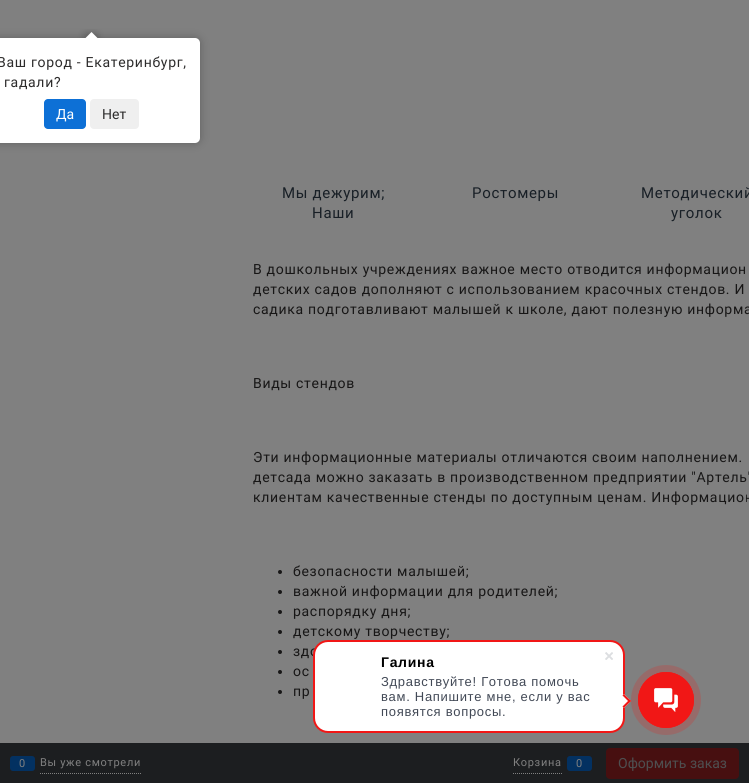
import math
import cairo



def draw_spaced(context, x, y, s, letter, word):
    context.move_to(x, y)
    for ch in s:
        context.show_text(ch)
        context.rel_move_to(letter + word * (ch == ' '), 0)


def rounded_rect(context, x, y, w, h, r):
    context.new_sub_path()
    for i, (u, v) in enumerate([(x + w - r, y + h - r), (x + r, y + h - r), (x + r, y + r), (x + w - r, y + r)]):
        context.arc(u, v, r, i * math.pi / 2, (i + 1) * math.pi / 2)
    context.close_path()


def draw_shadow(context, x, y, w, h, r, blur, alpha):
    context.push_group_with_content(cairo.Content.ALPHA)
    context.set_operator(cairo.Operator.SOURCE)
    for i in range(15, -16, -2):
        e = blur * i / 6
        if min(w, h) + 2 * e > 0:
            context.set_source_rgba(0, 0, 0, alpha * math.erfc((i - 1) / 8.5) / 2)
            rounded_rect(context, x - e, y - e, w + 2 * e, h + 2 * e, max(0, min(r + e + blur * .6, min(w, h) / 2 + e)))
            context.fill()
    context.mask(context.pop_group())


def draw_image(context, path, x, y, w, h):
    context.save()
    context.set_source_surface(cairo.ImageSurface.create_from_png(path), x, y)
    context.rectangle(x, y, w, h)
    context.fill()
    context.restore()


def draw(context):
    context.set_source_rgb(128 / 255, 128 / 255, 128 / 255)
    context.paint()
    context.set_source_rgb(0, 0, 0)
    draw_shadow(context, -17, 38, 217, 105, 5, 4.5, 0.25)
    context.set_source_rgb(1, 1, 1)
    rounded_rect(context, -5, 38, 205, 105, 5)
    context.fill()
    context.save()
    context.rectangle(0, 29, 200, 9)
    context.clip()
    context.set_source_rgb(0, 0, 0)
    draw_shadow(context, 86, 34, 10, 10, 0, 4.5, 0.25)
    context.restore()
    context.save()
    context.rectangle(0, 29, 200, 9)
    context.clip()
    context.new_path()
    context.move_to(91.5, 32)
    context.line_to(98.5, 39)
    context.line_to(91.5, 46)
    context.line_to(84.5, 39)
    context.close_path()
    context.fill()
    context.restore()
    context.set_source_rgb(13 / 255, 112 / 255, 214 / 255)
    rounded_rect(context, 44, 99, 42, 30, 4)
    context.fill()
    context.set_source_rgb(239 / 255, 239 / 255, 239 / 255)
    rounded_rect(context, 90, 99, 49, 30, 4)
    context.fill()
    context.set_source_rgb(23 / 255, 22 / 255, 22 / 255)
    context.arc(280, 572, 2, 0, 2 * math.pi)
    context.fill()
    context.arc(280, 592, 2, 0, 2 * math.pi)
    context.fill()
    context.arc(280, 612, 2, 0, 2 * math.pi)
    context.fill()
    context.arc(280, 632, 2, 0, 2 * math.pi)
    context.fill()
    context.arc(280, 652, 2, 0, 2 * math.pi)
    context.fill()
    context.arc(280, 672, 2, 0, 2 * math.pi)
    context.fill()
    context.arc(280, 692, 2, 0, 2 * math.pi)
    context.fill()
    context.set_source_rgb(28 / 255, 30 / 255, 32 / 255)
    context.rectangle(0, 743, 749, 40)
    context.fill()
    context.new_path()
    context.move_to(40, 773.5)
    context.line_to(141, 773.5)
    context.set_source_rgb(128 / 255, 128 / 255, 128 / 255)
    context.set_line_width(1)
    context.set_dash([1, 1])
    context.stroke()
    context.set_source_rgb(3 / 255, 49 / 255, 97 / 255)
    rounded_rect(context, 10, 756, 25, 15, 3)
    context.fill()
    context.new_path()
    context.move_to(513, 773.5)
    context.line_to(562, 773.5)
    context.set_source_rgb(128 / 255, 128 / 255, 128 / 255)
    context.stroke()
    context.set_source_rgb(3 / 255, 49 / 255, 97 / 255)
    rounded_rect(context, 567, 756, 25, 15, 3)
    context.fill()
    context.set_source_rgb(71 / 255, 15 / 255, 16 / 255)
    rounded_rect(context, 606, 748, 133, 31, 4)
    context.fill()
    context.set_source_rgb(150 / 255, 107 / 255, 106 / 255)
    context.arc(666, 700, 35, 0, 2 * math.pi)
    context.fill()
    context.arc(666, 700, 27.6, 0, 2 * math.pi)
    context.set_source_rgb(241 / 255, 23 / 255, 22 / 255)
    context.set_line_width(0.8)
    context.set_dash([])
    context.stroke()
    context.arc(666, 700, 28, 0, 2 * math.pi)
    context.fill()
    draw_image(context, "images/2.png", 654, 688, 24, 24)
    context.select_font_face("Roboto")
    context.set_font_size(14)
    context.set_source_rgb(45 / 255, 44 / 255, 44 / 255)
    draw_spaced(context, -3, 67, "Ваш город - Екатеринбург,", 0.7, 0)
    draw_spaced(context, 4, 87, "гадали?", 0.7, 0)
    context.set_source_rgb(1, 1, 1)
    context.move_to(56, 119)
    context.show_text("Да")
    context.set_source_rgb(45 / 255, 44 / 255, 44 / 255)
    context.move_to(102, 119)
    context.show_text("Нет")
    context.set_font_size(15)
    context.set_source_rgb(24 / 255, 31 / 255, 38 / 255)
    draw_spaced(context, 282, 198, "Мы дежурим;", 0.7, 0)
    draw_spaced(context, 312, 218, "Наши", 0.7, 0)
    draw_spaced(context, 472, 198, "Ростомеры", 0.7, 0)
    draw_spaced(context, 641, 198, "Методический", 0.7, 0)
    draw_spaced(context, 671, 218, "уголок", 0.7, 0)
    context.set_font_size(14)
    context.set_source_rgb(23 / 255, 22 / 255, 22 / 255)
    draw_spaced(context, 253, 274, "В дошкольных учреждениях важное место отводится информацион", 0.7, 0)
    draw_spaced(context, 253, 294, "детских садов дополняют с использованием красочных стендов. И", 0.7, 0)
    draw_spaced(context, 253, 314, "садика подготавливают малышей к школе, дают полезную информа", 0.7, 0)
    draw_spaced(context, 253, 388, "Виды стендов", 0.7, 0)
    draw_spaced(context, 253, 462, "Эти информационные материалы отличаются своим наполнением.", 0.7, 0)
    draw_spaced(context, 253, 482, "детсада можно заказать в производственном предприятии \"Артель\"", 0.7, 0)
    draw_spaced(context, 253, 502, "клиентам качественные стенды по доступным ценам. Информацион", 0.7, 0)
    draw_spaced(context, 293, 576, "безопасности малышей;", 0.7, 0)
    draw_spaced(context, 293, 596, "важной информации для родителей;", 0.7, 0)
    draw_spaced(context, 293, 616, "распорядку дня;", 0.7, 0)
    draw_spaced(context, 293, 636, "детскому творчеству;", 0.7, 0)
    draw_spaced(context, 293, 656, "здо", 0.7, 0)
    draw_spaced(context, 293, 676, "ос", 0.7, 0)
    draw_spaced(context, 293, 696, "пр", 0.7, 0)
    context.set_font_size(11)
    context.set_source_rgb(128 / 255, 128 / 255, 128 / 255)
    draw_spaced(context, 19, 767, "0", 0.7, 0)
    draw_spaced(context, 40, 766, "Вы уже смотрели", 0.7, 0)
    draw_spaced(context, 513, 766, "Корзина", 0.7, 0)
    draw_spaced(context, 576, 767, "0", 0.7, 0)
    context.set_font_size(14)
    context.set_source_rgb(78 / 255, 79 / 255, 80 / 255)
    context.move_to(618, 768)
    context.show_text("Оформить заказ")
    context.set_source_rgb(1, 1, 1)
    rounded_rect(context, 314, 641, 310, 91, 14)
    context.fill_preserve()
    context.set_source_rgb(241 / 255, 23 / 255, 22 / 255)
    context.set_line_width(2)
    context.stroke()
    draw_image(context, "images/1.png", 605, 652, 8, 8)
    context.select_font_face("Liberation Sans", cairo.FontSlant.NORMAL, cairo.FontWeight.BOLD)
    context.set_source_rgb(0, 0, 0)
    draw_spaced(context, 381, 667, "Галина", 0.7, 0)
    context.select_font_face("Liberation Sans")
    context.set_font_size(13)
    context.set_source_rgb(66 / 255, 73 / 255, 86 / 255)
    draw_spaced(context, 381, 686, "Здравствуйте! Готова помочь", 0.7, 0)
    draw_spaced(context, 381, 701, "вам. Напишите мне, если у вас", 0.7, 0)
    draw_spaced(context, 381, 716, "появятся вопросы.", 0.7, 0)
    context.set_source_rgb(1, 1, 1)
    context.new_path()
    context.move_to(617, 701)
    context.line_to(624, 694)
    context.line_to(631, 701)
    context.line_to(624, 708)
    context.close_path()
    context.fill()
    context.set_source_rgb(241 / 255, 23 / 255, 22 / 255)
    context.new_path()
    context.move_to(622.5, 695.5)
    context.line_to(624, 694)
    context.line_to(631, 701)
    context.line_to(629.5, 702.5)
    context.close_path()
    context.fill()
    context.new_path()
    context.move_to(622.5, 706.5)
    context.line_to(629.5, 699.5)
    context.line_to(631, 701)
    context.line_to(624, 708)
    context.close_path()
    context.fill()


surface = cairo.ImageSurface(cairo.Format.RGB24, 749, 783)
context = cairo.Context(surface)
options = cairo.FontOptions()
options.set_hint_metrics(cairo.HintMetrics.OFF)
options.set_hint_style(cairo.HintStyle.NONE)
context.set_font_options(options)
context.set_miter_limit(4)
draw(context)
surface.write_to_png("out.png")
